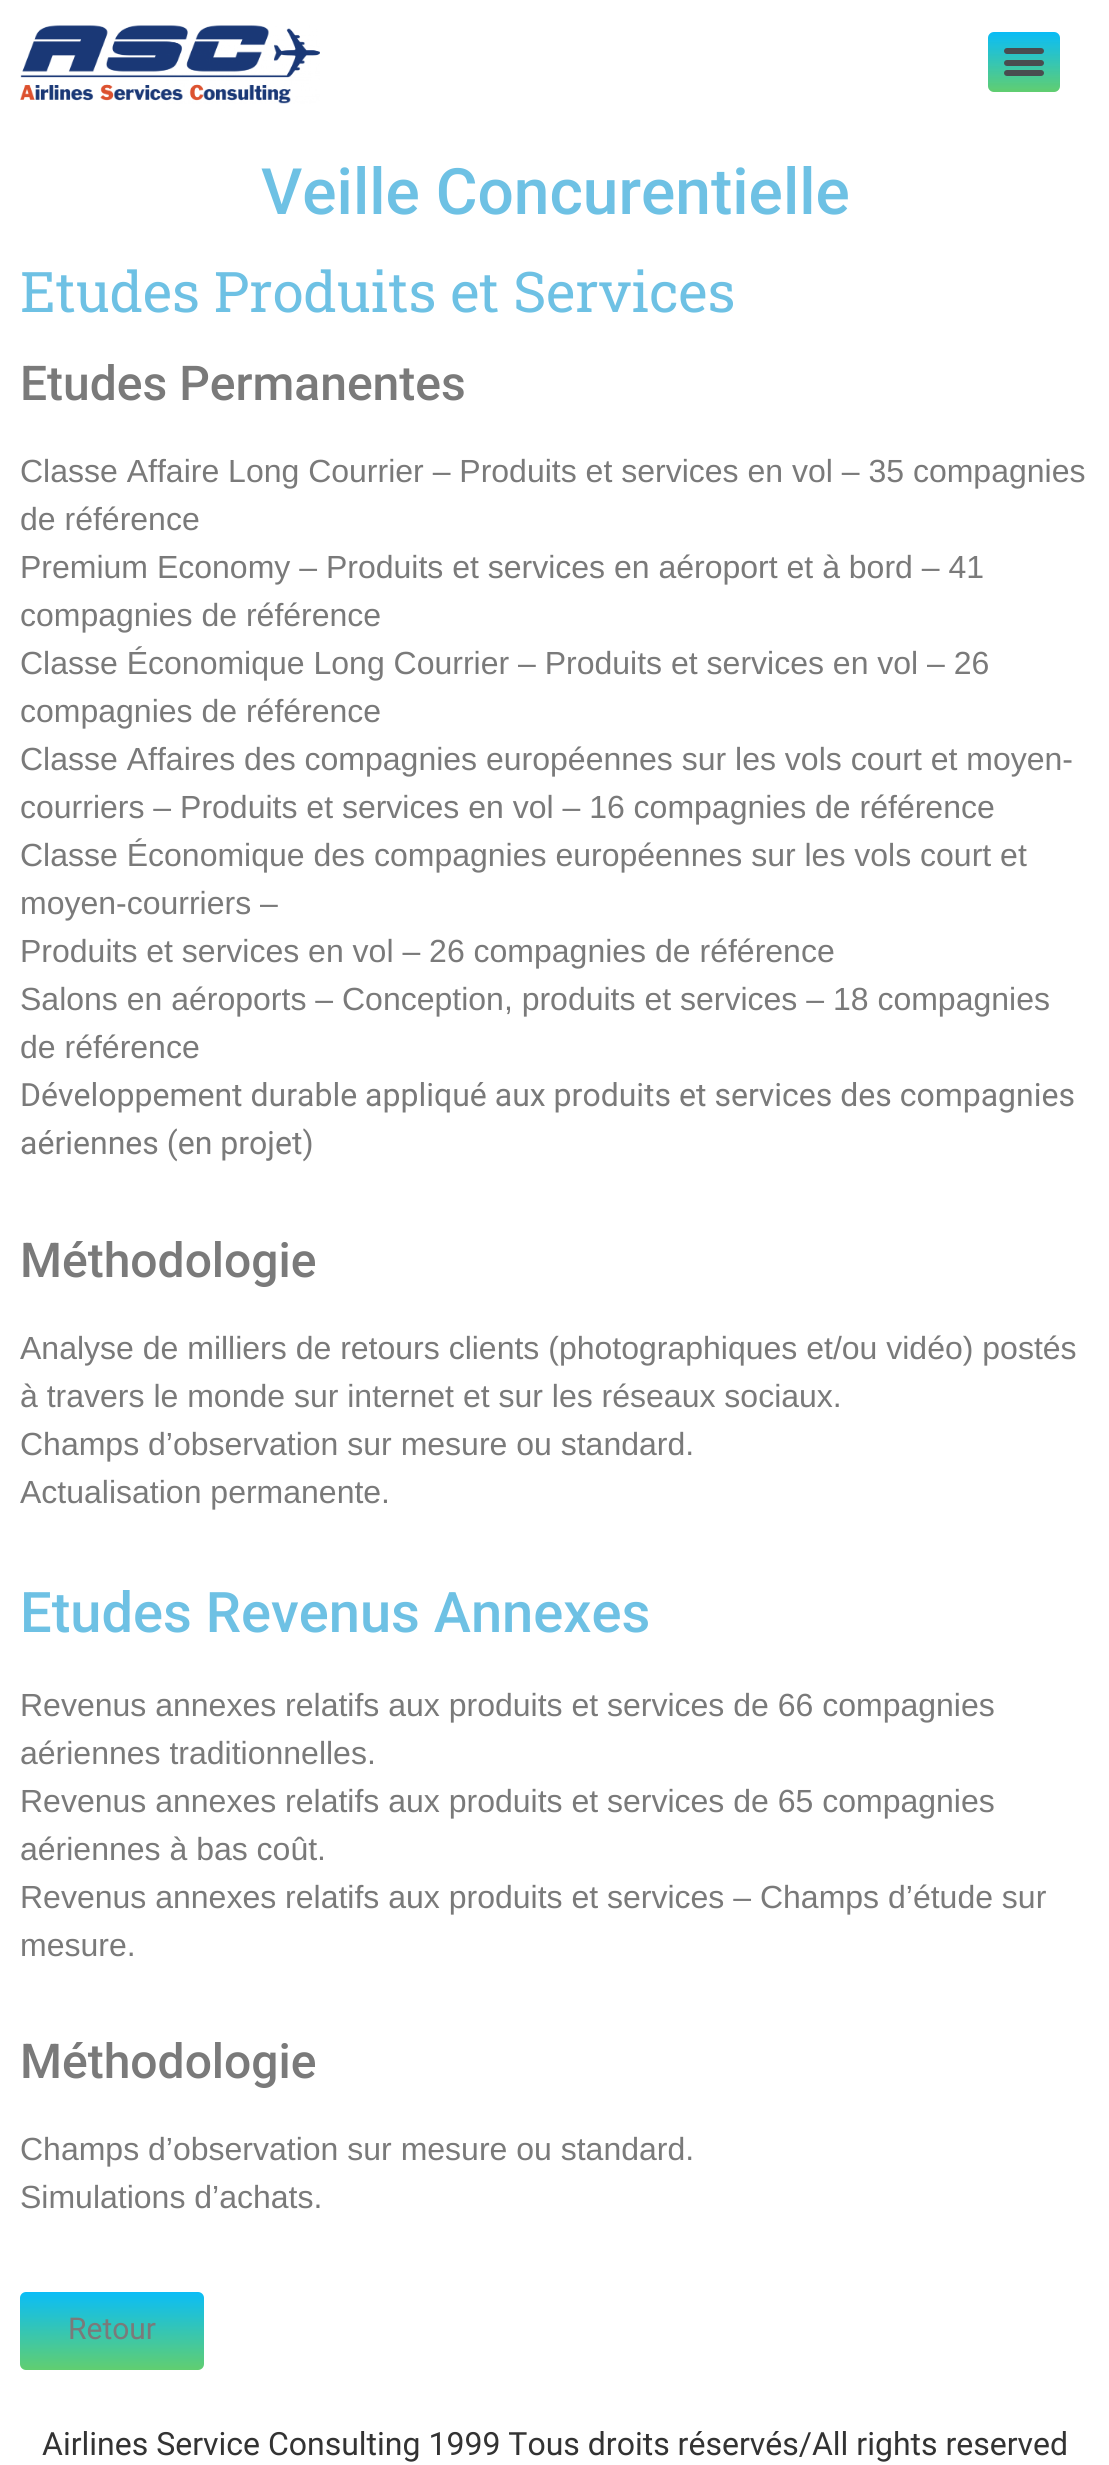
import math
import cairo



def rounded_rect(context, x, y, w, h, r):
    context.new_sub_path()
    for i, (u, v) in enumerate([(x + w - r, y + h - r), (x + r, y + h - r), (x + r, y + r), (x + w - r, y + r)]):
        context.arc(u, v, r, i * math.pi / 2, (i + 1) * math.pi / 2)
    context.close_path()


def draw_image(context, path, x, y, w, h):
    context.save()
    context.set_source_surface(cairo.ImageSurface.create_from_png(path), x, y)
    context.rectangle(x, y, w, h)
    context.fill()
    context.restore()


def draw(context):
    context.set_source_rgb(1, 1, 1)
    context.paint()
    draw_image(context, "images/1.png", 20, 25, 300, 79)
    context.set_source_rgb(242 / 255, 242 / 255, 242 / 255)
    rounded_rect(context, 988, 32, 72, 60, 6)
    context.fill()
    gradient = cairo.LinearGradient(1024, 32, 1024, 92)
    gradient.add_color_stop_rgba(0, 0, 186 / 255, 247 / 255, 0.96)
    gradient.add_color_stop_rgba(1, 97 / 255, 206 / 255, 112 / 255, 1)
    context.set_source(gradient)
    rounded_rect(context, 988, 32, 72, 60, 6)
    context.fill()
    context.set_source_rgb(73 / 255, 76 / 255, 79 / 255)
    rounded_rect(context, 1004, 60, 40, 6, 3)
    context.fill()
    rounded_rect(context, 1004, 48, 40, 6, 3)
    context.fill()
    rounded_rect(context, 1004, 70, 40, 6, 3)
    context.fill()
    gradient = cairo.LinearGradient(112, 2292, 112, 2370)
    gradient.add_color_stop_rgba(0, 10 / 255, 189 / 255, 247 / 255, 1)
    gradient.add_color_stop_rgba(1, 97 / 255, 206 / 255, 112 / 255, 1)
    context.set_source(gradient)
    rounded_rect(context, 20, 2292, 184, 78, 6)
    context.fill()
    context.select_font_face("Roboto Medium")
    context.set_font_size(64)
    context.set_source_rgb(110 / 255, 193 / 255, 228 / 255)
    context.move_to(261, 214)
    context.show_text("Veille Concurentielle")
    context.select_font_face("Roboto Slab")
    context.set_font_size(56)
    context.move_to(20, 312)
    context.show_text("Etudes Produits et Services")
    context.select_font_face("Roboto Medium")
    context.set_font_size(48)
    context.set_source_rgb(122 / 255, 122 / 255, 122 / 255)
    context.move_to(20, 400)
    context.show_text("Etudes Permanentes")
    context.select_font_face("Liberation Sans")
    context.set_font_size(32)
    context.move_to(20, 482)
    context.show_text("Classe Affaire Long Courrier – Produits et services en vol – 35 compagnies")
    context.move_to(20, 530)
    context.show_text("de référence")
    context.move_to(20, 578)
    context.show_text("Premium Economy – Produits et services en aéroport et à bord – 41")
    context.move_to(20, 626)
    context.show_text("compagnies de référence")
    context.move_to(20, 674)
    context.show_text("Classe Économique Long Courrier – Produits et services en vol – 26")
    context.move_to(20, 722)
    context.show_text("compagnies de référence")
    context.move_to(20, 770)
    context.show_text("Classe Affaires des compagnies européennes sur les vols court et moyen-")
    context.move_to(20, 818)
    context.show_text("courriers – Produits et services en vol – 16 compagnies de référence")
    context.move_to(20, 866)
    context.show_text("Classe Économique des compagnies européennes sur les vols court et")
    context.move_to(20, 914)
    context.show_text("moyen-courriers –")
    context.move_to(20, 962)
    context.show_text("Produits et services en vol – 26 compagnies de référence")
    context.move_to(20, 1010)
    context.show_text("Salons en aéroports – Conception, produits et services – 18 compagnies")
    context.move_to(20, 1058)
    context.show_text("de référence")
    context.select_font_face("Roboto")
    context.move_to(20, 1106)
    context.show_text("Développement durable appliqué aux produits et services des compagnies")
    context.move_to(20, 1154)
    context.show_text("aériennes (en projet)")
    context.select_font_face("Roboto Medium")
    context.set_font_size(48)
    context.move_to(20, 1277)
    context.show_text("Méthodologie")
    context.select_font_face("Liberation Sans")
    context.set_font_size(32)
    context.move_to(20, 1359)
    context.show_text("Analyse de milliers de retours clients (photographiques et/ou vidéo) postés")
    context.move_to(20, 1407)
    context.show_text("à travers le monde sur internet et sur les réseaux sociaux.")
    context.move_to(20, 1455)
    context.show_text("Champs d’observation sur mesure ou standard.")
    context.move_to(20, 1503)
    context.show_text("Actualisation permanente.")
    context.select_font_face("Roboto Medium")
    context.set_font_size(56)
    context.set_source_rgb(110 / 255, 193 / 255, 228 / 255)
    context.move_to(20, 1632)
    context.show_text("Etudes Revenus Annexes")
    context.select_font_face("Liberation Sans")
    context.set_font_size(32)
    context.set_source_rgb(122 / 255, 122 / 255, 122 / 255)
    context.move_to(20, 1716)
    context.show_text("Revenus annexes relatifs aux produits et services de 66 compagnies")
    context.move_to(20, 1764)
    context.show_text("aériennes traditionnelles.")
    context.move_to(20, 1812)
    context.show_text("Revenus annexes relatifs aux produits et services de 65 compagnies")
    context.move_to(20, 1860)
    context.show_text("aériennes à bas coût.")
    context.move_to(20, 1908)
    context.show_text("Revenus annexes relatifs aux produits et services – Champs d’étude sur")
    context.move_to(20, 1956)
    context.show_text("mesure.")
    context.select_font_face("Roboto Medium")
    context.set_font_size(48)
    context.move_to(20, 2078)
    context.show_text("Méthodologie")
    context.select_font_face("Liberation Sans")
    context.set_font_size(32)
    context.move_to(20, 2160)
    context.show_text("Champs d’observation sur mesure ou standard.")
    context.move_to(20, 2208)
    context.show_text("Simulations d’achats.")
    context.select_font_face("Roboto")
    context.set_font_size(30)
    context.move_to(68, 2339)
    context.show_text("Retour")
    context.set_font_size(32)
    context.set_source_rgb(51 / 255, 51 / 255, 51 / 255)
    context.move_to(42, 2455)
    context.show_text("Airlines Service Consulting 1999 Tous droits réservés/All rights reserved")


surface = cairo.ImageSurface(cairo.Format.RGB24, 1109, 2465)
context = cairo.Context(surface)
options = cairo.FontOptions()
options.set_hint_metrics(cairo.HintMetrics.OFF)
options.set_hint_style(cairo.HintStyle.NONE)
context.set_font_options(options)
context.set_miter_limit(4)
draw(context)
surface.write_to_png("out.png")
